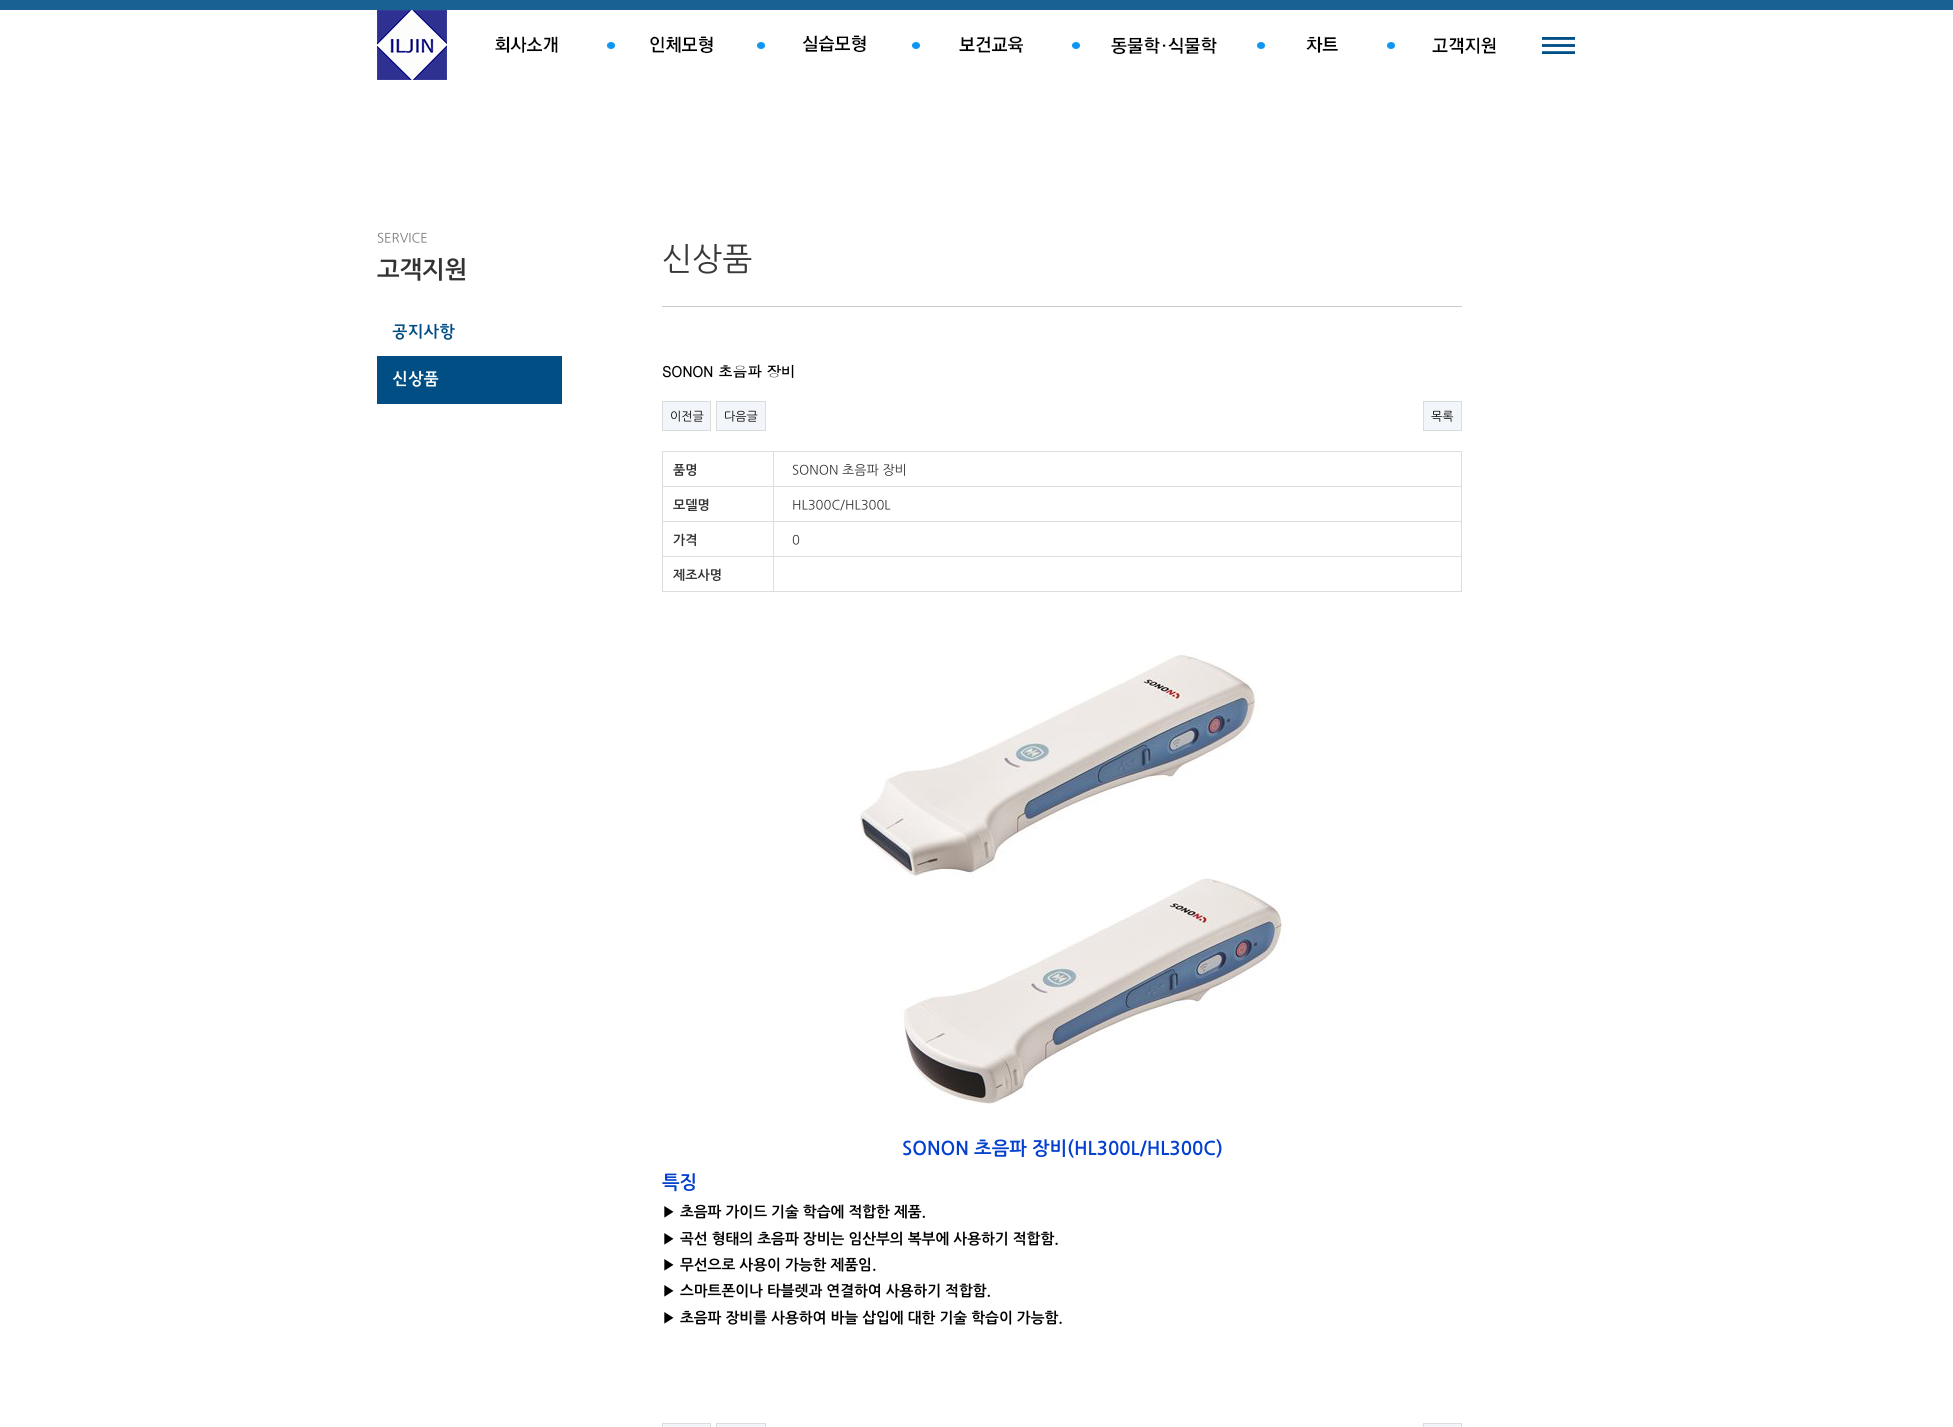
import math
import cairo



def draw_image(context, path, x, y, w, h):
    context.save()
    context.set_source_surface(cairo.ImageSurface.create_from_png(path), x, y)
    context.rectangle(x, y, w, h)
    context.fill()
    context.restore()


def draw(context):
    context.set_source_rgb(1, 1, 1)
    context.paint()
    context.set_source_rgb(25 / 255, 97 / 255, 147 / 255)
    context.rectangle(0, 0, 1953, 10)
    context.fill()
    draw_image(context, "images/1.png", 377, 10, 70, 70)
    draw_image(context, "images/2.png", 495, 36, 63, 17)
    draw_image(context, "images/3.png", 607, 42, 8, 7)
    draw_image(context, "images/4.png", 650, 36, 63, 18)
    draw_image(context, "images/3.png", 757, 42, 8, 7)
    draw_image(context, "images/5.png", 802, 35, 64, 18)
    draw_image(context, "images/3.png", 912, 42, 8, 7)
    draw_image(context, "images/6.png", 959, 36, 64, 17)
    draw_image(context, "images/3.png", 1072, 42, 8, 7)
    draw_image(context, "images/7.png", 1111, 37, 106, 18)
    draw_image(context, "images/3.png", 1257, 42, 8, 7)
    draw_image(context, "images/8.png", 1306, 36, 32, 17)
    draw_image(context, "images/3.png", 1387, 42, 8, 7)
    draw_image(context, "images/9.png", 1432, 37, 64, 17)
    draw_image(context, "images/10.png", 1542, 37, 33, 17)
    context.set_source_rgb(0, 78 / 255, 132 / 255)
    context.rectangle(377, 356, 185, 48)
    context.fill()
    context.set_source_rgb(204 / 255, 204 / 255, 204 / 255)
    context.rectangle(662, 306, 800, 1)
    context.fill()
    context.set_source_rgb(242 / 255, 245 / 255, 249 / 255)
    context.rectangle(662.5, 401.5, 48, 29)
    context.fill_preserve()
    context.set_source_rgb(217 / 255, 222 / 255, 217 / 255)
    context.set_line_width(1)
    context.stroke()
    context.set_source_rgb(242 / 255, 245 / 255, 249 / 255)
    context.rectangle(716.5, 401.5, 49, 29)
    context.fill_preserve()
    context.set_source_rgb(217 / 255, 222 / 255, 217 / 255)
    context.stroke()
    context.set_source_rgb(242 / 255, 245 / 255, 249 / 255)
    context.rectangle(1423.5, 401.5, 38, 29)
    context.fill_preserve()
    context.set_source_rgb(217 / 255, 222 / 255, 217 / 255)
    context.stroke()
    context.set_source_rgb(221 / 255, 221 / 255, 221 / 255)
    context.rectangle(1461, 451, 1, 141)
    context.fill()
    context.rectangle(662, 591, 800, 1)
    context.fill()
    context.rectangle(662, 451, 1, 141)
    context.fill()
    context.rectangle(663, 451, 798, 1)
    context.fill()
    context.rectangle(663, 486, 798, 1)
    context.fill()
    context.rectangle(663, 521, 798, 1)
    context.fill()
    context.rectangle(663, 556, 798, 1)
    context.fill()
    context.rectangle(773, 452, 1, 140)
    context.fill()
    draw_image(context, "images/11.png", 860, 645, 429, 459)
    context.set_source_rgb(242 / 255, 245 / 255, 249 / 255)
    context.rectangle(662.5, 1423.5, 48, 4)
    context.fill_preserve()
    context.set_source_rgb(217 / 255, 222 / 255, 217 / 255)
    context.stroke()
    context.set_source_rgb(242 / 255, 245 / 255, 249 / 255)
    context.rectangle(716.5, 1423.5, 49, 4)
    context.fill_preserve()
    context.set_source_rgb(217 / 255, 222 / 255, 217 / 255)
    context.stroke()
    context.set_source_rgb(242 / 255, 245 / 255, 249 / 255)
    context.rectangle(1423.5, 1423.5, 38, 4)
    context.fill_preserve()
    context.set_source_rgb(217 / 255, 222 / 255, 217 / 255)
    context.stroke()
    context.select_font_face("NanumGothic")
    context.set_font_size(13)
    context.set_source_rgb(119 / 255, 119 / 255, 119 / 255)
    context.move_to(377, 242)
    context.show_text("SERVICE")
    context.select_font_face("NanumGothic", cairo.FontSlant.NORMAL, cairo.FontWeight.BOLD)
    context.set_font_size(24)
    context.set_source_rgb(51 / 255, 51 / 255, 51 / 255)
    context.move_to(377, 277)
    context.show_text("고객지원")
    context.select_font_face("JejuGothic")
    context.set_font_size(17)
    context.set_source_rgb(0, 78 / 255, 132 / 255)
    context.move_to(392, 337)
    context.show_text("공지사항")
    context.set_source_rgb(1, 1, 1)
    context.move_to(392, 384)
    context.show_text("신상품")
    context.select_font_face("NanumGothic")
    context.set_font_size(32)
    context.set_source_rgb(57 / 255, 57 / 255, 57 / 255)
    context.move_to(662, 269)
    context.show_text("신상품")
    context.select_font_face("Dotum", cairo.FontSlant.NORMAL, cairo.FontWeight.BOLD)
    context.set_font_size(14.5)
    context.set_source_rgb(0, 0, 0)
    context.move_to(662, 377)
    context.show_text("SONON 초음파 장비")
    context.select_font_face("NanumGothic")
    context.set_font_size(12)
    context.move_to(670, 420)
    context.show_text("이전글")
    context.move_to(724, 420)
    context.show_text("다음글")
    context.move_to(1431, 420)
    context.show_text("목록")
    context.select_font_face("NanumGothic", cairo.FontSlant.NORMAL, cairo.FontWeight.BOLD)
    context.set_font_size(13)
    context.set_source_rgb(51 / 255, 51 / 255, 51 / 255)
    context.move_to(673, 474)
    context.show_text("품명")
    context.select_font_face("NanumGothic")
    context.move_to(792, 474)
    context.show_text("SONON 초음파 장비")
    context.select_font_face("NanumGothic", cairo.FontSlant.NORMAL, cairo.FontWeight.BOLD)
    context.move_to(673, 509)
    context.show_text("모델명")
    context.select_font_face("NanumGothic")
    context.move_to(792, 509)
    context.show_text("HL300C/HL300L")
    context.select_font_face("NanumGothic", cairo.FontSlant.NORMAL, cairo.FontWeight.BOLD)
    context.move_to(673, 544)
    context.show_text("가격")
    context.select_font_face("NanumGothic")
    context.move_to(792, 544)
    context.show_text("0")
    context.select_font_face("NanumGothic", cairo.FontSlant.NORMAL, cairo.FontWeight.BOLD)
    context.move_to(673, 579)
    context.show_text("제조사명")
    context.select_font_face("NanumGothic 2", cairo.FontSlant.NORMAL, cairo.FontWeight.BOLD)
    context.set_font_size(18.7)
    context.set_source_rgb(3 / 255, 64 / 255, 206 / 255)
    context.move_to(902, 1155)
    context.show_text("SONON 초음파 장비(HL300L/HL300C)")
    context.move_to(662, 1189)
    context.show_text("특징")
    context.set_font_size(14.7)
    context.set_source_rgb(0, 0, 0)
    context.move_to(662, 1217)
    context.show_text("▶ 초음파 가이드 기술 학습에 적합한 제품.")
    context.move_to(662, 1244)
    context.show_text("▶ 곡선 형태의 초음파 장비는 임산부의 복부에 사용하기 적합함.")
    context.move_to(662, 1270)
    context.show_text("▶ 무선으로 사용이 가능한 제품임.")
    context.move_to(662, 1296)
    context.show_text("▶ 스마트폰이나 타블렛과 연결하여 사용하기 적합함.")
    context.move_to(662, 1323)
    context.show_text("▶ 초음파 장비를 사용하여 바늘 삽입에 대한 기술 학습이 가능함.")


surface = cairo.ImageSurface(cairo.Format.RGB24, 1953, 1427)
context = cairo.Context(surface)
options = cairo.FontOptions()
options.set_hint_metrics(cairo.HintMetrics.OFF)
options.set_hint_style(cairo.HintStyle.NONE)
context.set_font_options(options)
context.set_miter_limit(4)
draw(context)
surface.write_to_png("out.png")
